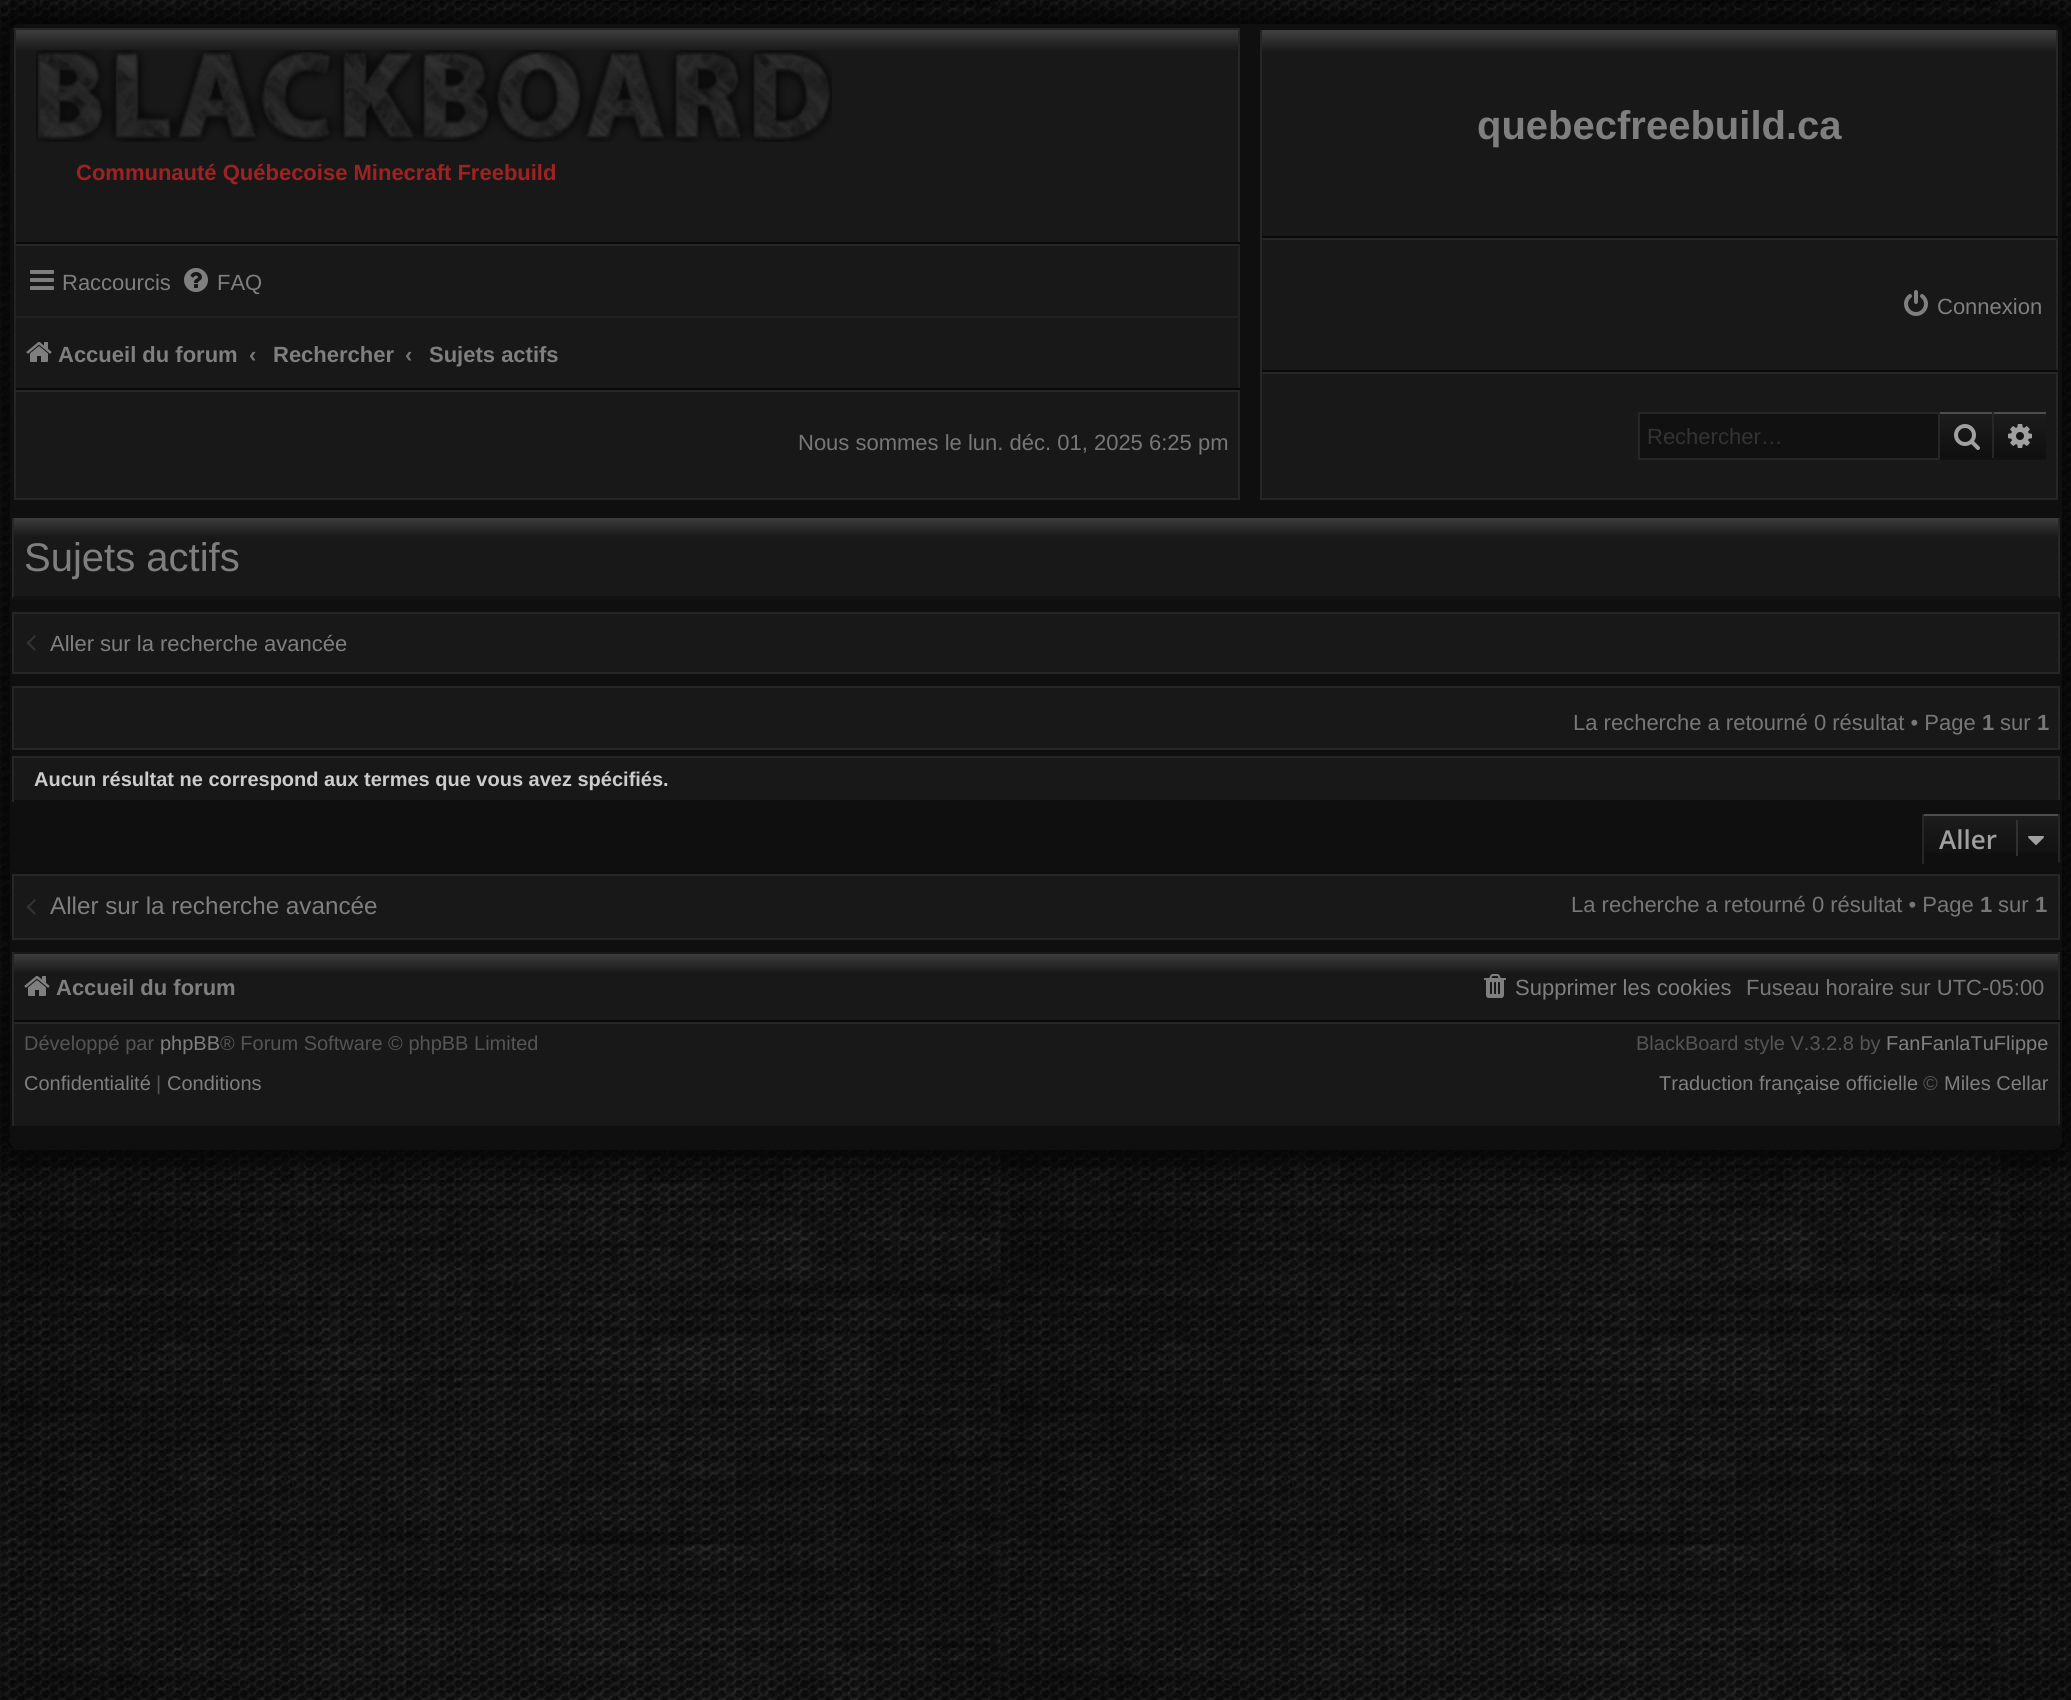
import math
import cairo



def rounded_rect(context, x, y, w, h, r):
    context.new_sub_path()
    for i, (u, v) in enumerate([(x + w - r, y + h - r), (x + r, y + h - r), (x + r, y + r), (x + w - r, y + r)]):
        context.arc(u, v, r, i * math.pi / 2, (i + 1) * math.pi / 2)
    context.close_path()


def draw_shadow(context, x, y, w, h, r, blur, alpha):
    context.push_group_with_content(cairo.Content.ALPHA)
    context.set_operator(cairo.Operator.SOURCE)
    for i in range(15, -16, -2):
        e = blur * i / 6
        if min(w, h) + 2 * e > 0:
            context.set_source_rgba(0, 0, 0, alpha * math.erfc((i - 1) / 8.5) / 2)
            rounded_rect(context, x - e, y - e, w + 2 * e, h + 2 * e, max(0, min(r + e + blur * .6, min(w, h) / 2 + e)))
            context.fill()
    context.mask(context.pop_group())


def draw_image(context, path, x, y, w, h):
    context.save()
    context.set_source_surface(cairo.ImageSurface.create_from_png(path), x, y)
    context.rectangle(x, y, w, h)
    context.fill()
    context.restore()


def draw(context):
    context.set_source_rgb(1, 1, 1)
    context.paint()
    draw_image(context, "images/1.png", 0, 1174, 2071, 526)
    draw_image(context, "images/2.png", 0, 0, 2071, 1174)
    context.set_source_rgb(5 / 255, 5 / 255, 5 / 255)
    draw_shadow(context, 0, 14, 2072, 1146, 20, 9, 0.9)
    context.set_source_rgb(15 / 255, 15 / 255, 15 / 255)
    rounded_rect(context, 10, 24, 2052, 1126, 10)
    context.fill()
    gradient = cairo.LinearGradient(1659, 32, 1659, 236)
    gradient.add_color_stop_rgba(0, 61 / 255, 61 / 255, 61 / 255, 1)
    gradient.add_color_stop_rgba(0.1, 24 / 255, 24 / 255, 24 / 255, 1)
    gradient.add_color_stop_rgba(1, 24 / 255, 24 / 255, 24 / 255, 1)
    context.set_source(gradient)
    context.rectangle(1262, 32, 794, 204)
    context.fill()
    context.set_source_rgb(61 / 255, 61 / 255, 61 / 255)
    context.rectangle(1260, 30, 798, 2)
    context.fill()
    context.set_source_rgb(38 / 255, 38 / 255, 38 / 255)
    context.rectangle(2056, 30, 2, 208)
    context.fill()
    context.set_source_rgb(9 / 255, 9 / 255, 9 / 255)
    context.rectangle(1260, 236, 798, 2)
    context.fill()
    context.set_source_rgb(38 / 255, 38 / 255, 38 / 255)
    context.rectangle(1260, 30, 2, 208)
    context.fill()
    gradient = cairo.LinearGradient(627, 30, 627, 242)
    gradient.add_color_stop_rgba(0, 61 / 255, 61 / 255, 61 / 255, 1)
    gradient.add_color_stop_rgba(0.1, 24 / 255, 24 / 255, 24 / 255, 1)
    gradient.add_color_stop_rgba(1, 24 / 255, 24 / 255, 24 / 255, 1)
    context.set_source(gradient)
    context.rectangle(16, 30, 1222, 212)
    context.fill()
    context.set_source_rgb(38 / 255, 38 / 255, 38 / 255)
    context.rectangle(14, 28, 1226, 2)
    context.fill()
    context.rectangle(1238, 28, 2, 216)
    context.fill()
    context.set_source_rgb(9 / 255, 9 / 255, 9 / 255)
    context.rectangle(14, 242, 1226, 2)
    context.fill()
    context.set_source_rgb(38 / 255, 38 / 255, 38 / 255)
    context.rectangle(14, 28, 2, 216)
    context.fill()
    draw_image(context, "images/3.png", 36, 50, 796, 92)
    context.set_source_rgb(24 / 255, 24 / 255, 24 / 255)
    context.rectangle(16, 246, 1222, 142)
    context.fill()
    context.set_source_rgb(38 / 255, 38 / 255, 38 / 255)
    context.rectangle(14, 244, 1226, 2)
    context.fill()
    context.set_source_rgb(34 / 255, 34 / 255, 34 / 255)
    context.rectangle(1238, 244, 2, 146)
    context.fill()
    context.set_source_rgb(9 / 255, 9 / 255, 9 / 255)
    context.rectangle(14, 388, 1226, 2)
    context.fill()
    context.set_source_rgb(34 / 255, 34 / 255, 34 / 255)
    context.rectangle(14, 244, 2, 146)
    context.fill()
    draw_image(context, "images/4.png", 30, 270, 24, 20)
    draw_image(context, "images/5.png", 184, 268, 24, 24)
    context.set_source_rgb(33 / 255, 33 / 255, 33 / 255)
    context.rectangle(16, 316, 1222, 2)
    context.fill()
    draw_image(context, "images/6.png", 26, 342, 26, 20)
    context.set_source_rgb(24 / 255, 24 / 255, 24 / 255)
    context.rectangle(1262, 240, 794, 130)
    context.fill()
    context.set_source_rgb(38 / 255, 38 / 255, 38 / 255)
    context.rectangle(1260, 238, 798, 2)
    context.fill()
    context.rectangle(2056, 238, 2, 134)
    context.fill()
    context.set_source_rgb(9 / 255, 9 / 255, 9 / 255)
    context.rectangle(1260, 370, 798, 2)
    context.fill()
    context.set_source_rgb(38 / 255, 38 / 255, 38 / 255)
    context.rectangle(1260, 238, 2, 134)
    context.fill()
    draw_image(context, "images/7.png", 1904, 290, 24, 26)
    context.set_source_rgb(24 / 255, 24 / 255, 24 / 255)
    context.rectangle(15, 391, 1224, 108)
    context.fill_preserve()
    context.set_source_rgb(38 / 255, 38 / 255, 38 / 255)
    context.stroke()
    context.set_source_rgb(24 / 255, 24 / 255, 24 / 255)
    context.rectangle(1261, 373, 796, 126)
    context.fill_preserve()
    context.set_source_rgb(38 / 255, 38 / 255, 38 / 255)
    context.stroke()
    gradient = cairo.LinearGradient(1966, 414, 1966, 458)
    gradient.add_color_stop_rgba(0, 28 / 255, 28 / 255, 28 / 255, 1)
    gradient.add_color_stop_rgba(1, 15 / 255, 15 / 255, 15 / 255, 1)
    context.set_source(gradient)
    context.rectangle(1940, 414, 52, 44)
    context.fill()
    context.set_source_rgb(77 / 255, 77 / 255, 77 / 255)
    context.rectangle(1938, 412, 108, 2)
    context.fill()
    context.set_source_rgb(38 / 255, 38 / 255, 38 / 255)
    context.rectangle(1992, 412, 2, 48)
    context.fill()
    context.set_source_rgb(17 / 255, 17 / 255, 17 / 255)
    context.rectangle(1938, 458, 108, 2)
    context.fill()
    context.set_source_rgb(38 / 255, 38 / 255, 38 / 255)
    context.rectangle(1938, 412, 2, 48)
    context.fill()
    draw_image(context, "images/8.png", 1954, 424, 26, 26)
    context.set_source_rgb(17 / 255, 17 / 255, 17 / 255)
    context.rectangle(1640, 414, 298, 44)
    context.fill()
    context.set_source_rgb(38 / 255, 38 / 255, 38 / 255)
    context.rectangle(1638, 412, 300, 2)
    context.fill()
    context.rectangle(1638, 458, 300, 2)
    context.fill()
    context.rectangle(1638, 412, 2, 48)
    context.fill()
    gradient = cairo.LinearGradient(2020, 414, 2020, 458)
    gradient.add_color_stop_rgba(0, 28 / 255, 28 / 255, 28 / 255, 1)
    gradient.add_color_stop_rgba(1, 15 / 255, 15 / 255, 15 / 255, 1)
    context.set_source(gradient)
    context.rectangle(1994, 414, 52, 44)
    context.fill()
    draw_image(context, "images/9.png", 2008, 424, 24, 24)
    gradient = cairo.LinearGradient(1036, 518, 1036, 596)
    gradient.add_color_stop_rgba(0, 61 / 255, 61 / 255, 61 / 255, 1)
    gradient.add_color_stop_rgba(0.25, 24 / 255, 24 / 255, 24 / 255, 1)
    gradient.add_color_stop_rgba(1, 24 / 255, 24 / 255, 24 / 255, 1)
    context.set_source(gradient)
    context.rectangle(14, 518, 2044, 78)
    context.fill()
    context.set_source_rgb(38 / 255, 38 / 255, 38 / 255)
    context.new_path()
    context.move_to(2060, 518)
    context.line_to(2060, 600)
    context.line_to(2058, 596)
    context.line_to(2058, 518)
    context.close_path()
    context.fill()
    context.set_source_rgb(17 / 255, 17 / 255, 17 / 255)
    context.new_path()
    context.move_to(2060, 600)
    context.line_to(12, 600)
    context.line_to(14, 596)
    context.line_to(2058, 596)
    context.close_path()
    context.fill()
    context.set_source_rgb(38 / 255, 38 / 255, 38 / 255)
    context.new_path()
    context.move_to(12, 600)
    context.line_to(12, 518)
    context.line_to(14, 518)
    context.line_to(14, 596)
    context.close_path()
    context.fill()
    context.set_source_rgb(24 / 255, 24 / 255, 24 / 255)
    context.rectangle(13, 613, 2046, 60)
    context.fill_preserve()
    context.set_source_rgb(38 / 255, 38 / 255, 38 / 255)
    context.stroke()
    draw_image(context, "images/10.png", 27, 635, 9, 16)
    context.set_source_rgb(24 / 255, 24 / 255, 24 / 255)
    context.rectangle(13, 687, 2046, 62)
    context.fill_preserve()
    context.set_source_rgb(38 / 255, 38 / 255, 38 / 255)
    context.stroke()
    context.set_source_rgb(24 / 255, 24 / 255, 24 / 255)
    context.rectangle(14, 758, 2044, 42)
    context.fill()
    context.set_source_rgb(38 / 255, 38 / 255, 38 / 255)
    context.rectangle(12, 756, 2048, 2)
    context.fill()
    context.rectangle(2058, 756, 2, 46)
    context.fill()
    context.set_source_rgb(17 / 255, 17 / 255, 17 / 255)
    context.rectangle(2058, 800, 2, 2)
    context.fill()
    context.set_source_rgb(38 / 255, 38 / 255, 38 / 255)
    context.rectangle(12, 756, 2, 46)
    context.fill()
    gradient = cairo.LinearGradient(1991, 816, 1991, 862)
    gradient.add_color_stop_rgba(0, 28 / 255, 28 / 255, 28 / 255, 1)
    gradient.add_color_stop_rgba(1, 15 / 255, 15 / 255, 15 / 255, 1)
    context.set_source(gradient)
    context.rectangle(1924, 816, 134, 37)
    context.fill()
    context.set_source_rgb(77 / 255, 77 / 255, 77 / 255)
    context.rectangle(1922, 814, 138, 2)
    context.fill()
    context.set_source_rgb(38 / 255, 38 / 255, 38 / 255)
    context.rectangle(2058, 814, 2, 50)
    context.fill()
    context.set_source_rgb(17 / 255, 17 / 255, 17 / 255)
    context.rectangle(2058, 862, 2, 2)
    context.fill()
    context.set_source_rgb(38 / 255, 38 / 255, 38 / 255)
    context.rectangle(1922, 814, 2, 50)
    context.fill()
    context.set_source_rgb(49 / 255, 49 / 255, 49 / 255)
    context.rectangle(2016, 820, 2, 36)
    context.fill()
    draw_image(context, "images/11.png", 2028, 836, 16, 9)
    context.set_source_rgb(24 / 255, 24 / 255, 24 / 255)
    context.rectangle(13, 875, 2046, 64)
    context.fill_preserve()
    context.set_source_rgb(38 / 255, 38 / 255, 38 / 255)
    context.stroke()
    draw_image(context, "images/10.png", 27, 899, 9, 16)
    gradient = cairo.LinearGradient(1036, 888, 1036, 954)
    gradient.add_color_stop_rgba(0, 61 / 255, 61 / 255, 61 / 255, 1)
    gradient.add_color_stop_rgba(0.3, 24 / 255, 24 / 255, 24 / 255, 1)
    gradient.add_color_stop_rgba(1, 24 / 255, 24 / 255, 24 / 255, 1)
    context.set_source(gradient)
    context.rectangle(12, 952, 2048, 2)
    context.fill()
    gradient = cairo.LinearGradient(1036, 954, 1036, 1020)
    gradient.add_color_stop_rgba(0, 61 / 255, 61 / 255, 61 / 255, 1)
    gradient.add_color_stop_rgba(0.3, 24 / 255, 24 / 255, 24 / 255, 1)
    gradient.add_color_stop_rgba(1, 24 / 255, 24 / 255, 24 / 255, 1)
    context.set_source(gradient)
    context.rectangle(14, 954, 2044, 66)
    context.fill()
    context.set_source_rgb(38 / 255, 38 / 255, 38 / 255)
    context.rectangle(2058, 952, 2, 70)
    context.fill()
    context.set_source_rgb(9 / 255, 9 / 255, 9 / 255)
    context.rectangle(12, 1020, 2048, 2)
    context.fill()
    context.set_source_rgb(38 / 255, 38 / 255, 38 / 255)
    context.rectangle(12, 952, 2, 70)
    context.fill()
    draw_image(context, "images/6.png", 24, 976, 26, 20)
    draw_image(context, "images/12.png", 1484, 974, 22, 24)
    context.set_source_rgb(24 / 255, 24 / 255, 24 / 255)
    context.rectangle(14, 1024, 2044, 100)
    context.fill()
    context.set_source_rgb(38 / 255, 38 / 255, 38 / 255)
    context.rectangle(12, 1022, 2048, 2)
    context.fill()
    context.rectangle(2058, 1022, 2, 104)
    context.fill()
    context.set_source_rgb(24 / 255, 24 / 255, 24 / 255)
    context.rectangle(12, 1124, 2048, 2)
    context.fill()
    context.set_source_rgb(38 / 255, 38 / 255, 38 / 255)
    context.rectangle(12, 1022, 2, 104)
    context.fill()
    context.select_font_face("Liberation Sans", cairo.FontSlant.NORMAL, cairo.FontWeight.BOLD)
    context.set_font_size(40)
    context.set_source_rgb(127 / 255, 127 / 255, 127 / 255)
    context.move_to(1477, 139)
    context.show_text("quebecfreebuild.ca")
    context.set_font_size(22)
    context.set_source_rgb(158 / 255, 34 / 255, 34 / 255)
    context.move_to(76, 180)
    context.show_text("Communauté Québecoise Minecraft Freebuild")
    context.select_font_face("Liberation Sans")
    context.set_source_rgb(127 / 255, 127 / 255, 127 / 255)
    context.move_to(62, 290)
    context.show_text("Raccourcis")
    context.move_to(217, 290)
    context.show_text("FAQ")
    context.select_font_face("Liberation Sans", cairo.FontSlant.NORMAL, cairo.FontWeight.BOLD)
    context.move_to(58, 362)
    context.show_text("Accueil du forum")
    context.set_source_rgb(119 / 255, 119 / 255, 119 / 255)
    context.move_to(249, 362)
    context.show_text("‹")
    context.set_source_rgb(127 / 255, 127 / 255, 127 / 255)
    context.move_to(273, 362)
    context.show_text("Rechercher")
    context.set_source_rgb(119 / 255, 119 / 255, 119 / 255)
    context.move_to(405, 362)
    context.show_text("‹")
    context.set_source_rgb(127 / 255, 127 / 255, 127 / 255)
    context.move_to(429, 362)
    context.show_text("Sujets actifs")
    context.select_font_face("Liberation Sans")
    context.move_to(1937, 314)
    context.show_text("Connexion")
    context.set_source_rgb(119 / 255, 119 / 255, 119 / 255)
    context.move_to(798, 450)
    context.show_text("Nous sommes le lun. déc. 01, 2025 6:25 pm")
    context.set_source_rgb(51 / 255, 51 / 255, 51 / 255)
    context.move_to(1647, 444)
    context.show_text("Rechercher…")
    context.set_font_size(40)
    context.set_source_rgb(127 / 255, 127 / 255, 127 / 255)
    context.move_to(24, 571)
    context.show_text("Sujets actifs")
    context.set_font_size(22)
    context.move_to(50, 651)
    context.show_text("Aller sur la recherche avancée")
    context.set_source_rgb(119 / 255, 119 / 255, 119 / 255)
    context.move_to(1573, 730)
    context.show_text("La recherche a retourné 0 résultat • Page")
    context.select_font_face("Liberation Sans", cairo.FontSlant.NORMAL, cairo.FontWeight.BOLD)
    context.move_to(1982, 730)
    context.show_text("1")
    context.select_font_face("Liberation Sans")
    context.move_to(2000, 730)
    context.show_text("sur")
    context.select_font_face("Liberation Sans", cairo.FontSlant.NORMAL, cairo.FontWeight.BOLD)
    context.move_to(2037, 730)
    context.show_text("1")
    context.set_font_size(20)
    context.set_source_rgb(204 / 255, 204 / 255, 204 / 255)
    context.move_to(34, 786)
    context.show_text("Aucun résultat ne correspond aux termes que vous avez spécifiés.")
    context.select_font_face("Open Sans SemiBold")
    context.set_font_size(26)
    context.set_source_rgb(160 / 255, 160 / 255, 160 / 255)
    context.move_to(1939, 849)
    context.show_text("Aller")
    context.select_font_face("Liberation Sans")
    context.set_font_size(24.25)
    context.set_source_rgb(127 / 255, 127 / 255, 127 / 255)
    context.move_to(50, 914)
    context.show_text("Aller sur la recherche avancée")
    context.set_font_size(22)
    context.set_source_rgb(119 / 255, 119 / 255, 119 / 255)
    context.move_to(1571, 912)
    context.show_text("La recherche a retourné 0 résultat • Page")
    context.select_font_face("Liberation Sans", cairo.FontSlant.NORMAL, cairo.FontWeight.BOLD)
    context.move_to(1980, 912)
    context.show_text("1")
    context.select_font_face("Liberation Sans")
    context.move_to(1998, 912)
    context.show_text("sur")
    context.select_font_face("Liberation Sans", cairo.FontSlant.NORMAL, cairo.FontWeight.BOLD)
    context.move_to(2035, 912)
    context.show_text("1")
    context.set_source_rgb(127 / 255, 127 / 255, 127 / 255)
    context.move_to(56, 995)
    context.show_text("Accueil du forum")
    context.select_font_face("Liberation Sans")
    context.move_to(1515, 995)
    context.show_text("Supprimer les cookies")
    context.set_source_rgb(119 / 255, 119 / 255, 119 / 255)
    context.move_to(1746, 995)
    context.show_text("Fuseau horaire sur UTC-05:00")
    context.set_font_size(20)
    context.set_source_rgb(85 / 255, 85 / 255, 85 / 255)
    context.move_to(24, 1050)
    context.show_text("Développé par")
    context.set_source_rgb(127 / 255, 127 / 255, 127 / 255)
    context.move_to(160, 1050)
    context.show_text("phpBB")
    context.set_source_rgb(85 / 255, 85 / 255, 85 / 255)
    context.move_to(220, 1050)
    context.show_text("® Forum Software © phpBB Limited")
    context.move_to(1636, 1050)
    context.show_text("BlackBoard style V.3.2.8 by")
    context.set_source_rgb(127 / 255, 127 / 255, 127 / 255)
    context.move_to(1886, 1050)
    context.show_text("FanFanlaTuFlippe")
    context.move_to(24, 1090)
    context.show_text("Confidentialité")
    context.set_source_rgb(85 / 255, 85 / 255, 85 / 255)
    context.move_to(156, 1090)
    context.show_text("|")
    context.set_source_rgb(127 / 255, 127 / 255, 127 / 255)
    context.move_to(167, 1090)
    context.show_text("Conditions")
    context.move_to(1659, 1090)
    context.show_text("Traduction française officielle")
    context.set_source_rgb(85 / 255, 85 / 255, 85 / 255)
    context.move_to(1923, 1090)
    context.show_text("©")
    context.set_source_rgb(127 / 255, 127 / 255, 127 / 255)
    context.move_to(1944, 1090)
    context.show_text("Miles Cellar")


surface = cairo.ImageSurface(cairo.Format.RGB24, 2071, 1700)
context = cairo.Context(surface)
options = cairo.FontOptions()
options.set_hint_metrics(cairo.HintMetrics.OFF)
options.set_hint_style(cairo.HintStyle.NONE)
context.set_font_options(options)
context.set_miter_limit(4)
draw(context)
surface.write_to_png("out.png")
